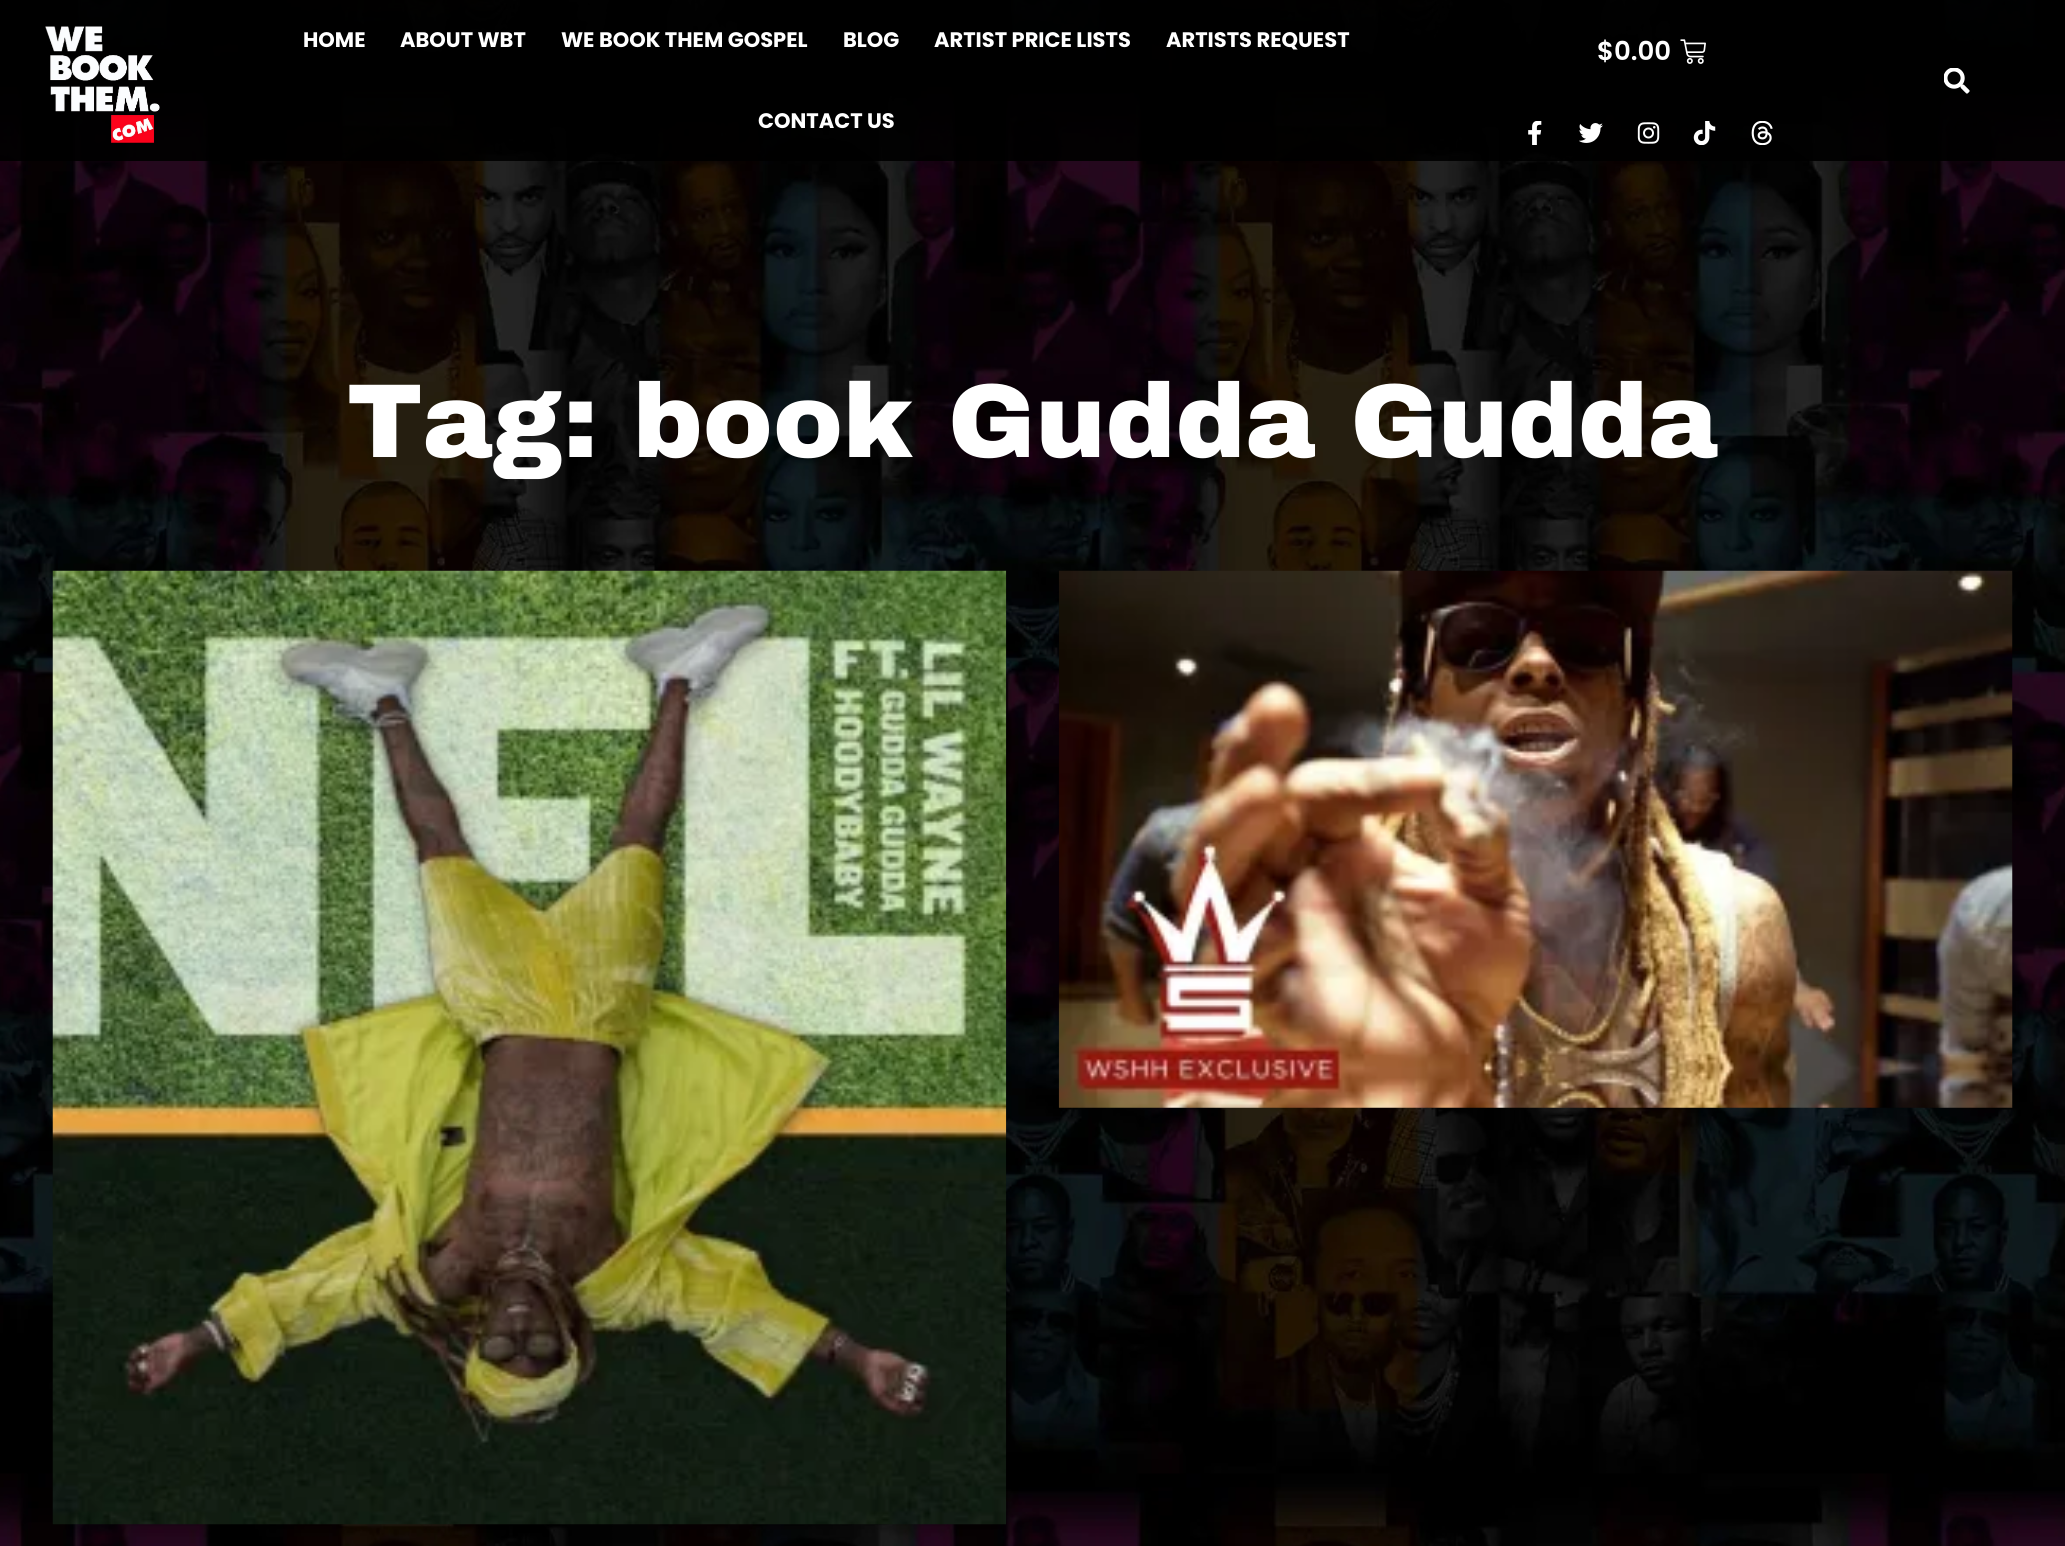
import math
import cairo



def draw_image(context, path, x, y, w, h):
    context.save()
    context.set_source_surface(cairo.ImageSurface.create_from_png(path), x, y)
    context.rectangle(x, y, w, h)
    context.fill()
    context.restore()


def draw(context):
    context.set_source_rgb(1, 1, 1)
    context.paint()
    draw_image(context, "images/1.png", 0, 0, 2065, 1546)
    context.set_source_rgba(0, 0, 0, 0.92)
    context.rectangle(0, 0, 2065, 161)
    context.fill()
    draw_image(context, "images/2.png", 45, 26, 115, 117)
    draw_image(context, "images/3.png", 1680, 39, 26, 25)
    draw_image(context, "images/4.png", 1528, 121, 14, 24)
    draw_image(context, "images/5.png", 1579, 123, 24, 20)
    draw_image(context, "images/6.png", 1637, 122, 23, 22)
    draw_image(context, "images/7.png", 1693, 121, 23, 24)
    draw_image(context, "images/8.png", 1751, 121, 22, 24)
    draw_image(context, "images/9.png", 1944, 68, 26, 26)
    draw_image(context, "images/10.png", 52, 570, 955, 955)
    draw_image(context, "images/11.png", 1058, 570, 955, 538)
    context.select_font_face("Poppins", cairo.FontSlant.NORMAL, cairo.FontWeight.BOLD)
    context.set_font_size(21)
    context.set_source_rgb(1, 1, 1)
    context.move_to(303, 47)
    context.show_text("HOME")
    context.move_to(400, 47)
    context.show_text("ABOUT WBT")
    context.move_to(561, 47)
    context.show_text("WE BOOK THEM GOSPEL")
    context.move_to(843, 47)
    context.show_text("BLOG")
    context.move_to(934, 47)
    context.show_text("ARTIST PRICE LISTS")
    context.move_to(1166, 47)
    context.show_text("ARTISTS REQUEST")
    context.move_to(758, 128)
    context.show_text("CONTACT US")
    context.select_font_face("Poppins SemiBold")
    context.set_font_size(26)
    context.move_to(1597, 60)
    context.show_text("$0.00")
    context.select_font_face("Archivo Black")
    context.set_font_size(105)
    context.move_to(347, 457)
    context.show_text("Tag: book Gudda Gudda")


surface = cairo.ImageSurface(cairo.Format.RGB24, 2065, 1546)
context = cairo.Context(surface)
options = cairo.FontOptions()
options.set_hint_metrics(cairo.HintMetrics.OFF)
options.set_hint_style(cairo.HintStyle.NONE)
context.set_font_options(options)
context.set_miter_limit(4)
draw(context)
surface.write_to_png("out.png")
